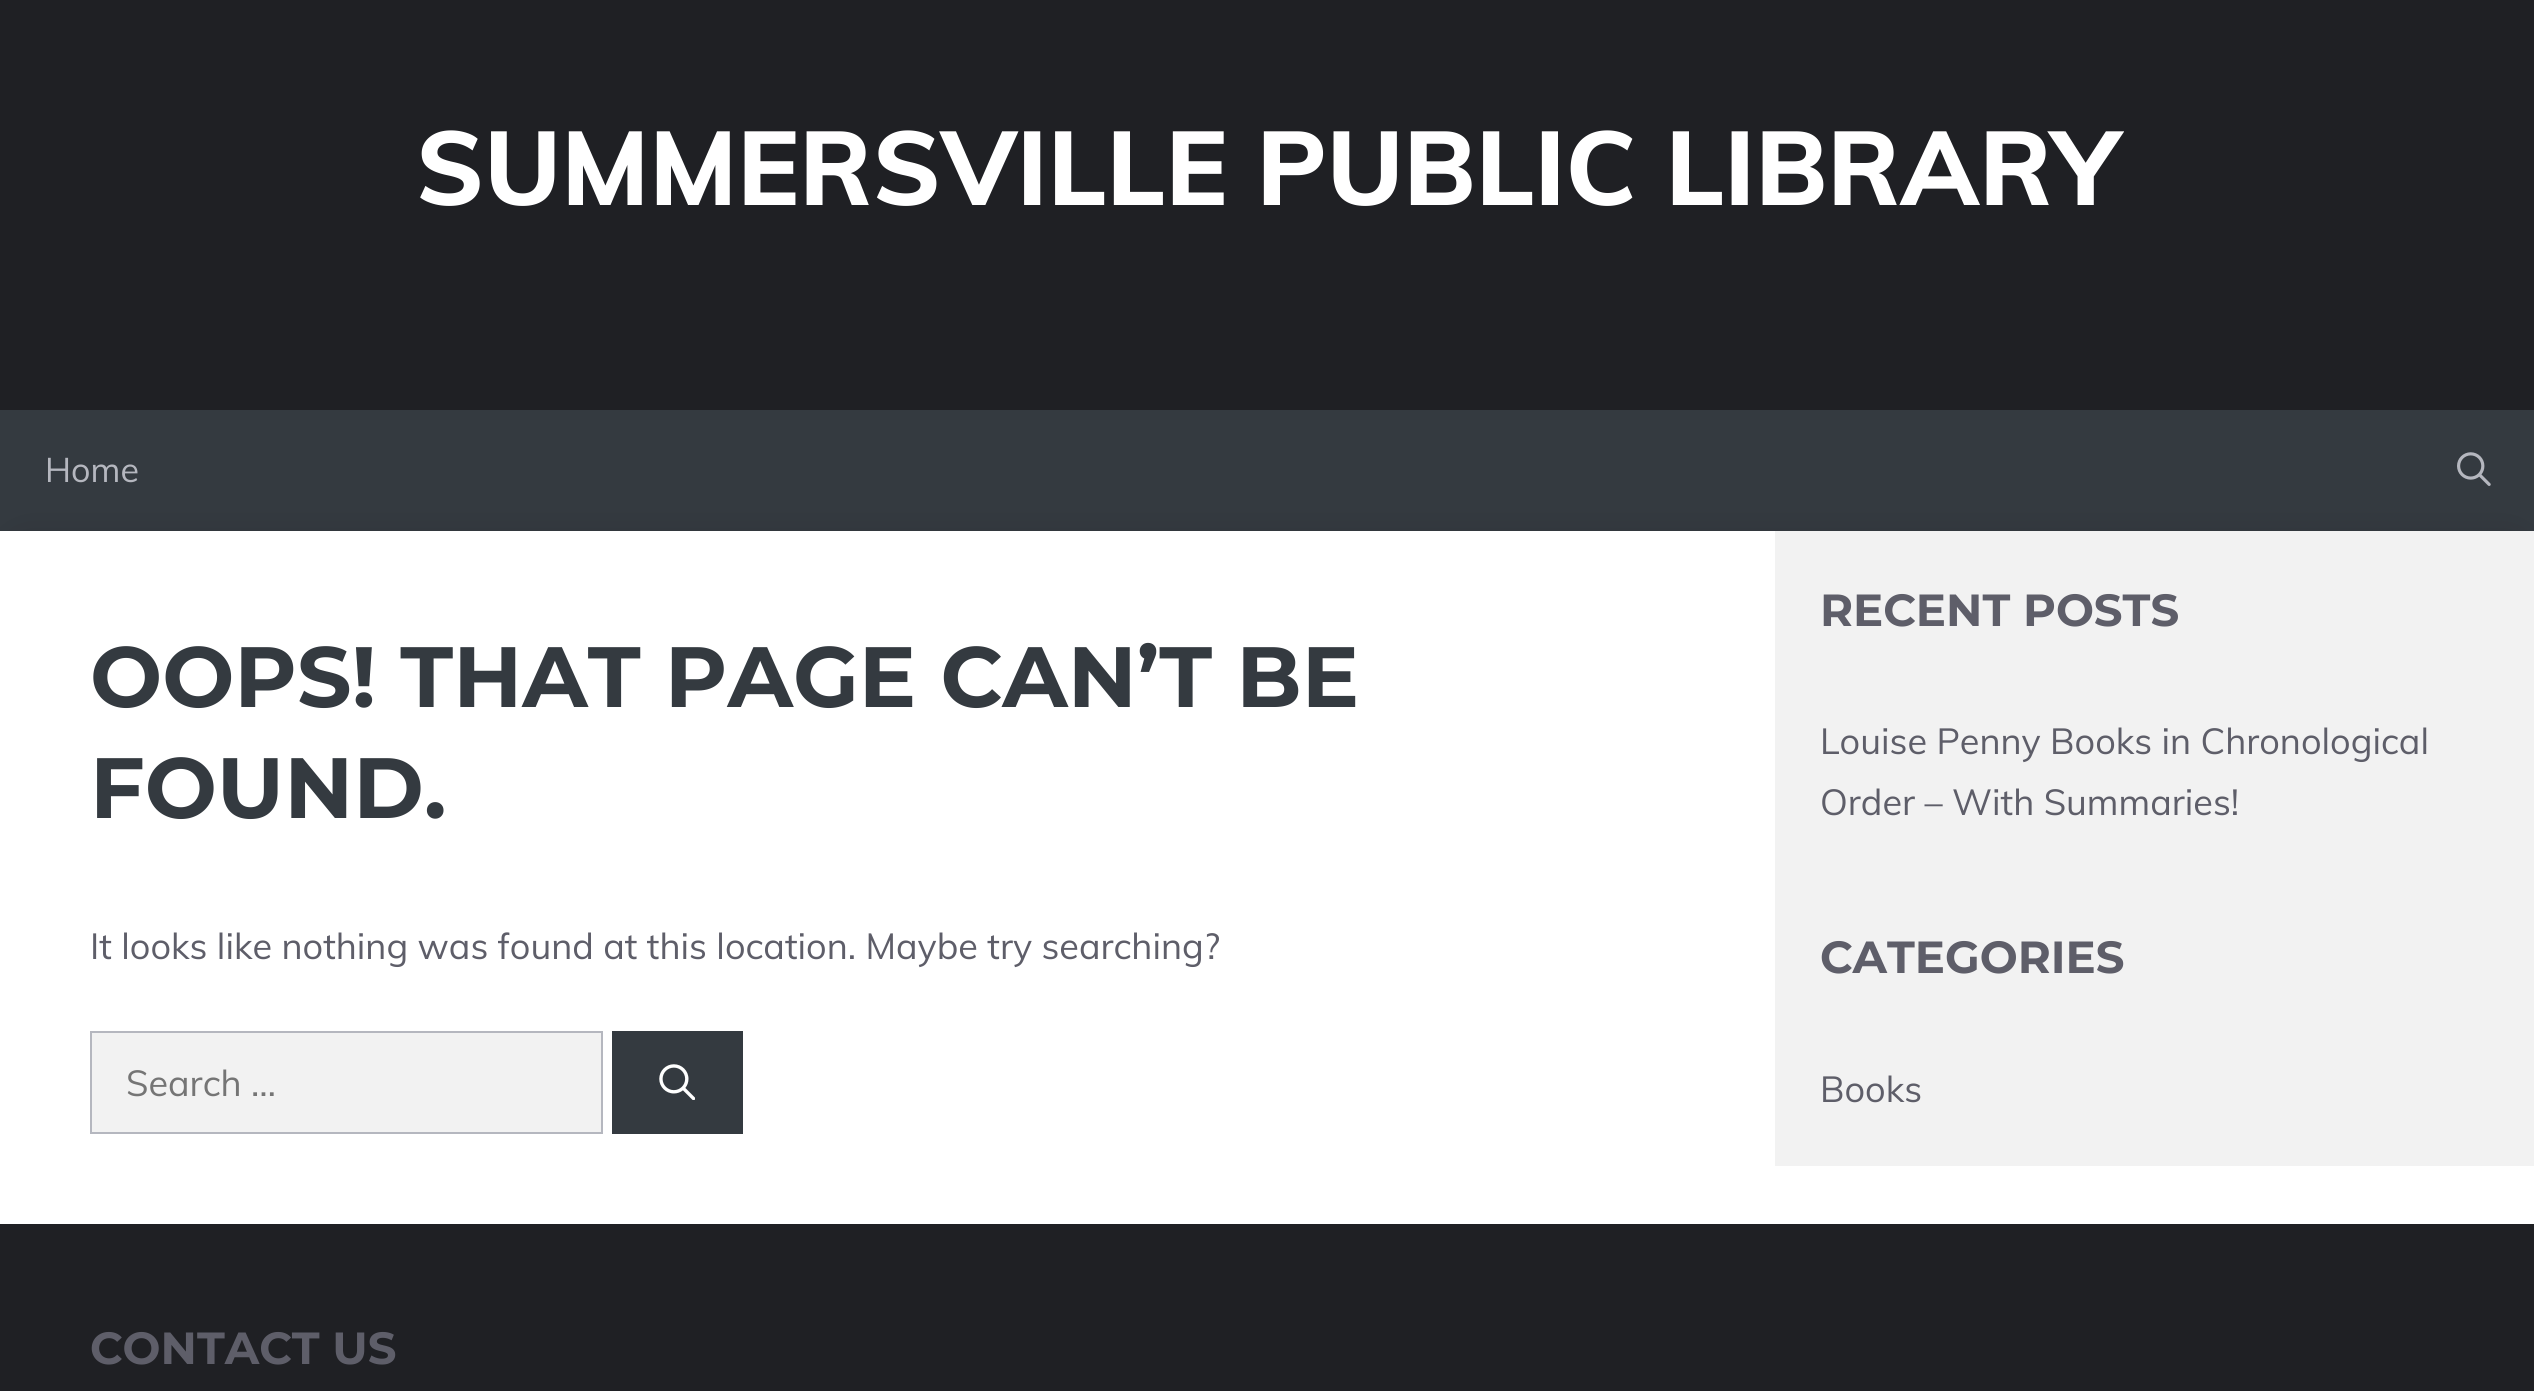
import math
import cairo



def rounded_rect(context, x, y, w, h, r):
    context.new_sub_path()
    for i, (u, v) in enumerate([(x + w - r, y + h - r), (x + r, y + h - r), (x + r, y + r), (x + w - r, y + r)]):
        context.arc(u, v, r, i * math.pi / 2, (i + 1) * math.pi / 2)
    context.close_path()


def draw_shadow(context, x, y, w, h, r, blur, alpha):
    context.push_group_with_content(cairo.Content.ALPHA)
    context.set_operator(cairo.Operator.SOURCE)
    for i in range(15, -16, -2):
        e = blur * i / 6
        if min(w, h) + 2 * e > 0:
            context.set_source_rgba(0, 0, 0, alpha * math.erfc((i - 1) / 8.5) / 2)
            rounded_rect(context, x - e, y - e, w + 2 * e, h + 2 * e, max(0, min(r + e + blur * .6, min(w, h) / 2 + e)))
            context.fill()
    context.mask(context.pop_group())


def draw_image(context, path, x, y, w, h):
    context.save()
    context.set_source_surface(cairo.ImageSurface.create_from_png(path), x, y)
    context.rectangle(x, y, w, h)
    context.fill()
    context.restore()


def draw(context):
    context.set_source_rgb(52 / 255, 58 / 255, 64 / 255)
    context.paint()
    context.set_source_rgb(31 / 255, 32 / 255, 36 / 255)
    context.rectangle(0, 0, 2534, 410)
    context.fill()
    context.set_source_rgb(0, 0, 0)
    draw_shadow(context, 23, 554, 2490, 648, 0, 22.5, 0.3)
    draw_image(context, "images/1.png", 2457, 452, 34, 34)
    context.set_source_rgb(1, 1, 1)
    context.rectangle(0, 531, 1775, 693)
    context.fill()
    context.set_source_rgb(242 / 255, 242 / 255, 242 / 255)
    context.rectangle(91, 1032, 511, 101)
    context.fill_preserve()
    context.set_source_rgb(181 / 255, 183 / 255, 191 / 255)
    context.stroke()
    context.set_source_rgb(52 / 255, 58 / 255, 64 / 255)
    context.rectangle(612, 1031, 131, 103)
    context.fill()
    draw_image(context, "images/2.png", 659, 1064, 36, 36)
    context.set_source_rgb(1, 1, 1)
    context.rectangle(1775, 1166, 759, 58)
    context.fill()
    context.set_source_rgb(242 / 255, 242 / 255, 242 / 255)
    context.rectangle(1775, 531, 759, 635)
    context.fill()
    context.set_source_rgb(31 / 255, 32 / 255, 36 / 255)
    context.rectangle(0, 1224, 2534, 167)
    context.fill()
    context.select_font_face("Muli ExtraBold")
    context.set_font_size(103.5)
    context.set_source_rgb(1, 1, 1)
    context.move_to(416, 205)
    context.show_text("SUMMERSVILLE PUBLIC LIBRARY")
    context.select_font_face("Muli")
    context.set_font_size(34)
    context.set_source_rgb(181 / 255, 183 / 255, 191 / 255)
    context.move_to(45, 482)
    context.show_text("Home")
    context.select_font_face("Montserrat", cairo.FontSlant.NORMAL, cairo.FontWeight.BOLD)
    context.set_font_size(85.5)
    context.set_source_rgb(52 / 255, 58 / 255, 64 / 255)
    context.move_to(90, 707)
    context.show_text("OOPS! THAT PAGE CAN’T BE")
    context.move_to(90, 818)
    context.show_text("FOUND.")
    context.select_font_face("Muli")
    context.set_font_size(36)
    context.set_source_rgb(94 / 255, 94 / 255, 105 / 255)
    context.move_to(90, 959)
    context.show_text("It looks like nothing was found at this location. Maybe try searching?")
    context.set_source_rgb(117 / 255, 117 / 255, 117 / 255)
    context.move_to(126, 1096)
    context.show_text("Search …")
    context.select_font_face("Montserrat", cairo.FontSlant.NORMAL, cairo.FontWeight.BOLD)
    context.set_font_size(45)
    context.set_source_rgb(94 / 255, 94 / 255, 105 / 255)
    context.move_to(1820, 626)
    context.show_text("RECENT POSTS")
    context.select_font_face("Muli")
    context.set_font_size(36)
    context.move_to(1820, 754)
    context.show_text("Louise Penny Books in Chronological")
    context.move_to(1820, 815)
    context.show_text("Order – With Summaries!")
    context.select_font_face("Montserrat", cairo.FontSlant.NORMAL, cairo.FontWeight.BOLD)
    context.set_font_size(45)
    context.move_to(1820, 973)
    context.show_text("CATEGORIES")
    context.select_font_face("Muli")
    context.set_font_size(36)
    context.move_to(1820, 1102)
    context.show_text("Books")
    context.select_font_face("Montserrat", cairo.FontSlant.NORMAL, cairo.FontWeight.BOLD)
    context.set_font_size(45)
    context.move_to(90, 1364)
    context.show_text("CONTACT US")


surface = cairo.ImageSurface(cairo.Format.RGB24, 2534, 1391)
context = cairo.Context(surface)
options = cairo.FontOptions()
options.set_hint_metrics(cairo.HintMetrics.OFF)
options.set_hint_style(cairo.HintStyle.NONE)
context.set_font_options(options)
context.set_miter_limit(4)
draw(context)
surface.write_to_png("out.png")
